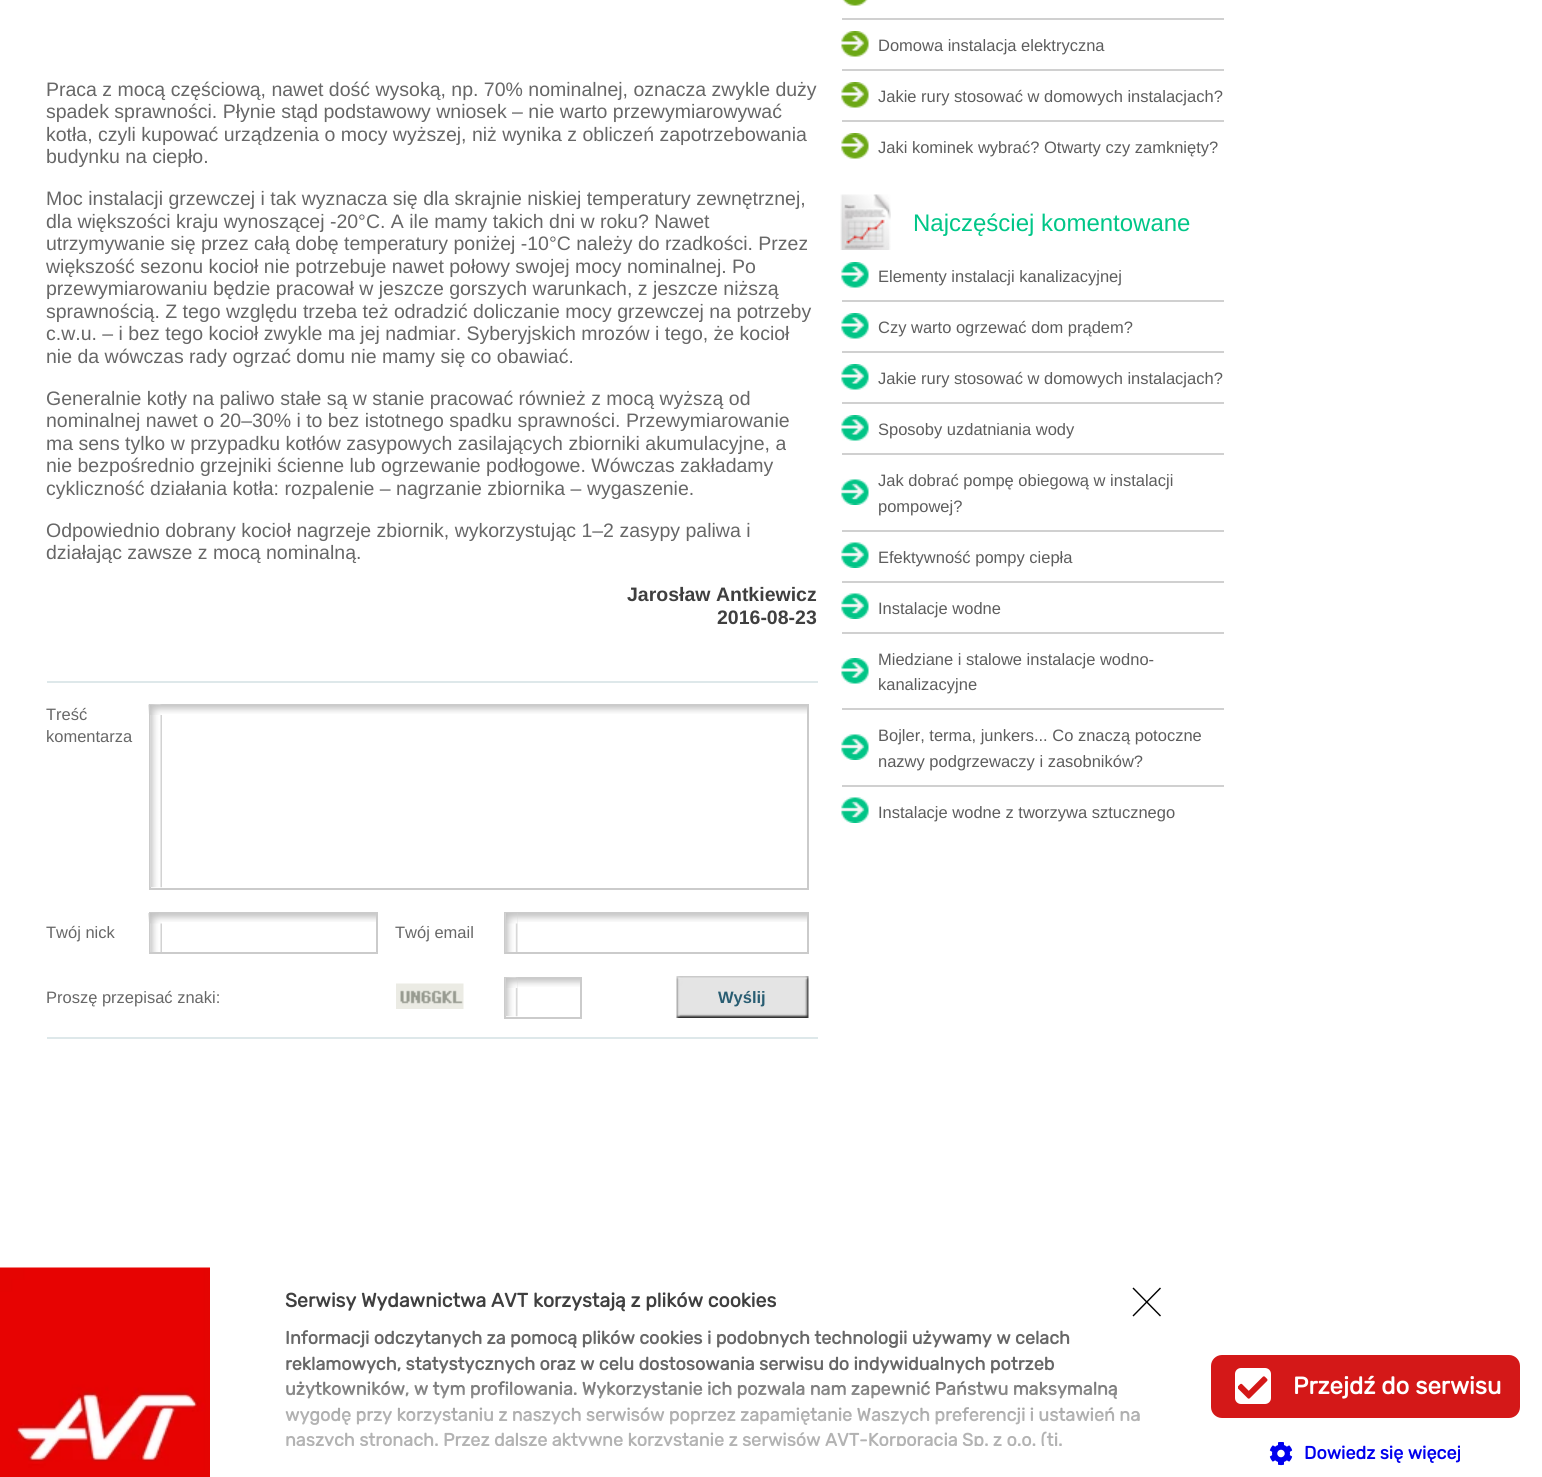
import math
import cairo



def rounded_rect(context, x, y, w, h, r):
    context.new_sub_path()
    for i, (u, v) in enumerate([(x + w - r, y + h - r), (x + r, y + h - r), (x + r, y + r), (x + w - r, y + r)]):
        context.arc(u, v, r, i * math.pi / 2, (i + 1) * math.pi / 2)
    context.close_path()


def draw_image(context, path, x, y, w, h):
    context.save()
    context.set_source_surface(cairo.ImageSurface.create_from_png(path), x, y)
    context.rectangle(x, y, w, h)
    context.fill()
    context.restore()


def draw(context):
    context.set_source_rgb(1, 1, 1)
    context.paint()
    context.set_source_rgb(222 / 255, 232 / 255, 234 / 255)
    context.rectangle(47, 681, 771, 2)
    context.fill()
    context.rectangle(47, 1037, 771, 2)
    context.fill()
    draw_image(context, "images/1.png", 148, 704, 659, 10)
    context.rectangle(150, 705, 658, 184)
    context.set_source_rgb(203 / 255, 203 / 255, 203 / 255)
    context.stroke()
    draw_image(context, "images/2.png", 150, 704, 12, 184)
    draw_image(context, "images/3.png", 150, 705, 12, 10)
    draw_image(context, "images/4.png", 148, 913, 228, 9)
    context.rectangle(150, 913, 227, 40)
    context.stroke()
    draw_image(context, "images/5.png", 150, 923, 12, 29)
    draw_image(context, "images/6.png", 150, 913, 12, 11)
    draw_image(context, "images/7.png", 517, 914, 290, 8)
    context.rectangle(505, 913, 303, 40)
    context.stroke()
    draw_image(context, "images/8.png", 505, 913, 13, 39)
    draw_image(context, "images/9.png", 506, 913, 12, 11)
    draw_image(context, "images/10.png", 396, 983, 68, 26)
    draw_image(context, "images/11.png", 517, 979, 63, 8)
    context.rectangle(505, 978, 76, 40)
    context.stroke()
    draw_image(context, "images/12.png", 505, 977, 13, 40)
    draw_image(context, "images/13.png", 506, 978, 12, 10)
    draw_image(context, "images/14.png", 676, 976, 133, 42)
    draw_image(context, "images/15.png", 842, 0, 26, 6)
    context.set_source_rgb(208 / 255, 208 / 255, 208 / 255)
    context.rectangle(842, 18, 382, 2)
    context.fill()
    draw_image(context, "images/16.png", 841, 31, 28, 26)
    context.rectangle(842, 69, 382, 2)
    context.fill()
    draw_image(context, "images/16.png", 841, 82, 28, 26)
    context.rectangle(842, 120, 382, 2)
    context.fill()
    draw_image(context, "images/16.png", 841, 133, 28, 26)
    draw_image(context, "images/17.png", 840, 194, 51, 56)
    draw_image(context, "images/18.png", 841, 262, 28, 26)
    context.rectangle(842, 300, 382, 2)
    context.fill()
    draw_image(context, "images/18.png", 841, 313, 28, 26)
    context.rectangle(842, 351, 382, 2)
    context.fill()
    draw_image(context, "images/18.png", 841, 364, 28, 26)
    context.rectangle(842, 402, 382, 2)
    context.fill()
    draw_image(context, "images/18.png", 841, 415, 28, 26)
    context.rectangle(842, 453, 382, 2)
    context.fill()
    draw_image(context, "images/19.png", 841, 479, 28, 26)
    context.rectangle(842, 530, 382, 2)
    context.fill()
    draw_image(context, "images/19.png", 841, 542, 28, 26)
    context.rectangle(842, 581, 382, 2)
    context.fill()
    draw_image(context, "images/19.png", 841, 593, 28, 26)
    context.rectangle(842, 632, 382, 2)
    context.fill()
    draw_image(context, "images/18.png", 841, 658, 28, 26)
    context.rectangle(842, 708, 382, 2)
    context.fill()
    draw_image(context, "images/19.png", 841, 734, 28, 26)
    context.rectangle(842, 785, 382, 2)
    context.fill()
    draw_image(context, "images/19.png", 841, 797, 28, 26)
    draw_image(context, "images/20.png", 0, 1267, 210, 210)
    context.set_source_rgb(0, 0, 0)
    context.new_path()
    context.move_to(1132.5, 1315.5)
    context.line_to(1160, 1287.5)
    context.line_to(1161, 1288.5)
    context.line_to(1133.5, 1316.5)
    context.close_path()
    context.fill()
    context.new_path()
    context.move_to(1133.5, 1287.5)
    context.line_to(1161, 1315.5)
    context.line_to(1160, 1316.5)
    context.line_to(1132.5, 1288.5)
    context.close_path()
    context.fill()
    context.set_source_rgb(212 / 255, 24 / 255, 24 / 255)
    rounded_rect(context, 1211, 1355, 309, 63, 11)
    context.fill()
    context.set_source_rgb(1, 1, 1)
    rounded_rect(context, 1235, 1368, 36, 36, 6)
    context.fill()
    draw_image(context, "images/21.png", 1238, 1376, 30, 23)
    draw_image(context, "images/22.png", 1269, 1442, 24, 24)
    context.select_font_face("Liberation Sans")
    context.set_font_size(19.5)
    context.set_source_rgb(103 / 255, 103 / 255, 103 / 255)
    context.move_to(46, 96)
    context.show_text("Praca z mocą częściową, nawet dość wysoką, np. 70% nominalnej, oznacza zwykle duży")
    context.move_to(46, 118)
    context.show_text("spadek sprawności. Płynie stąd podstawowy wniosek – nie warto przewymiarowywać")
    context.move_to(46, 141)
    context.show_text("kotła, czyli kupować urządzenia o mocy wyższej, niż wynika z obliczeń zapotrzebowania")
    context.move_to(46, 163)
    context.show_text("budynku na ciepło.")
    context.move_to(46, 205)
    context.show_text("Moc instalacji grzewczej i tak wyznacza się dla skrajnie niskiej temperatury zewnętrznej,")
    context.move_to(46, 228)
    context.show_text("dla większości kraju wynoszącej -20°C. A ile mamy takich dni w roku? Nawet")
    context.move_to(46, 250)
    context.show_text("utrzymywanie się przez całą dobę temperatury poniżej -10°C należy do rzadkości. Przez")
    context.move_to(46, 273)
    context.show_text("większość sezonu kocioł nie potrzebuje nawet połowy swojej mocy nominalnej. Po")
    context.move_to(46, 295)
    context.show_text("przewymiarowaniu będzie pracował w jeszcze gorszych warunkach, z jeszcze niższą")
    context.move_to(46, 318)
    context.show_text("sprawnością. Z tego względu trzeba też odradzić doliczanie mocy grzewczej na potrzeby")
    context.move_to(46, 340)
    context.show_text("c.w.u. – i bez tego kocioł zwykle ma jej nadmiar. Syberyjskich mrozów i tego, że kocioł")
    context.move_to(46, 363)
    context.show_text("nie da wówczas rady ogrzać domu nie mamy się co obawiać.")
    context.move_to(46, 405)
    context.show_text("Generalnie kotły na paliwo stałe są w stanie pracować również z mocą wyższą od")
    context.move_to(46, 427)
    context.show_text("nominalnej nawet o 20–30% i to bez istotnego spadku sprawności. Przewymiarowanie")
    context.move_to(46, 450)
    context.show_text("ma sens tylko w przypadku kotłów zasypowych zasilających zbiorniki akumulacyjne, a")
    context.move_to(46, 472)
    context.show_text("nie bezpośrednio grzejniki ścienne lub ogrzewanie podłogowe. Wówczas zakładamy")
    context.move_to(46, 495)
    context.show_text("cykliczność działania kotła: rozpalenie – nagrzanie zbiornika – wygaszenie.")
    context.move_to(46, 537)
    context.show_text("Odpowiednio dobrany kocioł nagrzeje zbiornik, wykorzystując 1–2 zasypy paliwa i")
    context.move_to(46, 559)
    context.show_text("działając zawsze z mocą nominalną.")
    context.select_font_face("Liberation Sans", cairo.FontSlant.NORMAL, cairo.FontWeight.BOLD)
    context.set_source_rgb(63 / 255, 63 / 255, 63 / 255)
    context.move_to(627, 601)
    context.show_text("Jarosław Antkiewicz")
    context.move_to(717, 624)
    context.show_text("2016-08-23")
    context.select_font_face("Liberation Sans")
    context.set_font_size(16.5)
    context.set_source_rgb(103 / 255, 103 / 255, 103 / 255)
    context.move_to(46, 720)
    context.show_text("Treść")
    context.move_to(46, 742)
    context.show_text("komentarza")
    context.move_to(46, 938)
    context.show_text("Twój nick")
    context.move_to(395, 938)
    context.show_text("Twój email")
    context.move_to(46, 1003)
    context.show_text("Proszę przepisać znaki:")
    context.select_font_face("Liberation Sans", cairo.FontSlant.NORMAL, cairo.FontWeight.BOLD)
    context.set_source_rgb(41 / 255, 93 / 255, 114 / 255)
    context.move_to(718, 1003)
    context.show_text("Wyślij")
    context.select_font_face("Liberation Sans")
    context.set_source_rgb(93 / 255, 93 / 255, 93 / 255)
    context.move_to(878, 51)
    context.show_text("Domowa instalacja elektryczna")
    context.move_to(878, 102)
    context.show_text("Jakie rury stosować w domowych instalacjach?")
    context.move_to(878, 153)
    context.show_text("Jaki kominek wybrać? Otwarty czy zamknięty?")
    context.set_font_size(24)
    context.set_source_rgb(0, 198 / 255, 136 / 255)
    context.move_to(913, 231)
    context.show_text("Najczęściej komentowane")
    context.set_font_size(16.5)
    context.set_source_rgb(93 / 255, 93 / 255, 93 / 255)
    context.move_to(878, 282)
    context.show_text("Elementy instalacji kanalizacyjnej")
    context.move_to(878, 333)
    context.show_text("Czy warto ogrzewać dom prądem?")
    context.move_to(878, 384)
    context.show_text("Jakie rury stosować w domowych instalacjach?")
    context.move_to(878, 435)
    context.show_text("Sposoby uzdatniania wody")
    context.move_to(878, 486)
    context.show_text("Jak dobrać pompę obiegową w instalacji")
    context.move_to(878, 512)
    context.show_text("pompowej?")
    context.move_to(878, 563)
    context.show_text("Efektywność pompy ciepła")
    context.move_to(878, 614)
    context.show_text("Instalacje wodne")
    context.move_to(878, 665)
    context.show_text("Miedziane i stalowe instalacje wodno-")
    context.move_to(878, 690)
    context.show_text("kanalizacyjne")
    context.move_to(878, 741)
    context.show_text("Bojler, terma, junkers... Co znaczą potoczne")
    context.move_to(878, 767)
    context.show_text("nazwy podgrzewaczy i zasobników?")
    context.move_to(878, 818)
    context.show_text("Instalacje wodne z tworzywa sztucznego")
    context.select_font_face("Rubik", cairo.FontSlant.NORMAL, cairo.FontWeight.BOLD)
    context.set_font_size(19.5)
    context.set_source_rgb(63 / 255, 63 / 255, 63 / 255)
    context.move_to(285, 1307)
    context.show_text("Serwisy Wydawnictwa AVT korzystają z plików cookies")
    context.set_font_size(18)
    context.set_source_rgb(103 / 255, 103 / 255, 103 / 255)
    context.move_to(285, 1344)
    context.show_text("Informacji odczytanych za pomocą plików cookies i podobnych technologii używamy w celach")
    context.move_to(285, 1370)
    context.show_text("reklamowych, statystycznych oraz w celu dostosowania serwisu do indywidualnych potrzeb")
    context.move_to(285, 1395)
    context.show_text("użytkowników, w tym profilowania. Wykorzystanie ich pozwala nam zapewnić Państwu maksymalną")
    context.move_to(285, 1421)
    context.show_text("wygodę przy korzystaniu z naszych serwisów poprzez zapamiętanie Waszych preferencji i ustawień na")
    context.save()
    context.rectangle(285, 1326, 881, 120)
    context.clip()
    context.move_to(285, 1446)
    context.show_text("naszych stronach. Przez dalsze aktywne korzystanie z serwisów AVT-Korporacja Sp. z o.o. (tj.")
    context.restore()
    gradient = cairo.LinearGradient(725, 1446, 725, 1344)
    gradient.add_color_stop_rgba(0.3, 1, 1, 1, 0.5)
    gradient.add_color_stop_rgba(0.7, 1, 1, 1, 0)
    context.set_source(gradient)
    context.rectangle(285, 1381, 854, 65)
    context.fill()
    context.set_font_size(24)
    context.set_source_rgb(1, 1, 1)
    context.move_to(1293, 1394)
    context.show_text("Przejdź do serwisu")
    context.set_font_size(18)
    context.set_source_rgb(0, 0, 238 / 255)
    context.move_to(1304, 1459)
    context.show_text("Dowiedz się więcej")


surface = cairo.ImageSurface(cairo.Format.RGB24, 1542, 1477)
context = cairo.Context(surface)
options = cairo.FontOptions()
options.set_hint_metrics(cairo.HintMetrics.OFF)
options.set_hint_style(cairo.HintStyle.NONE)
context.set_font_options(options)
context.set_miter_limit(4)
draw(context)
surface.write_to_png("out.png")
